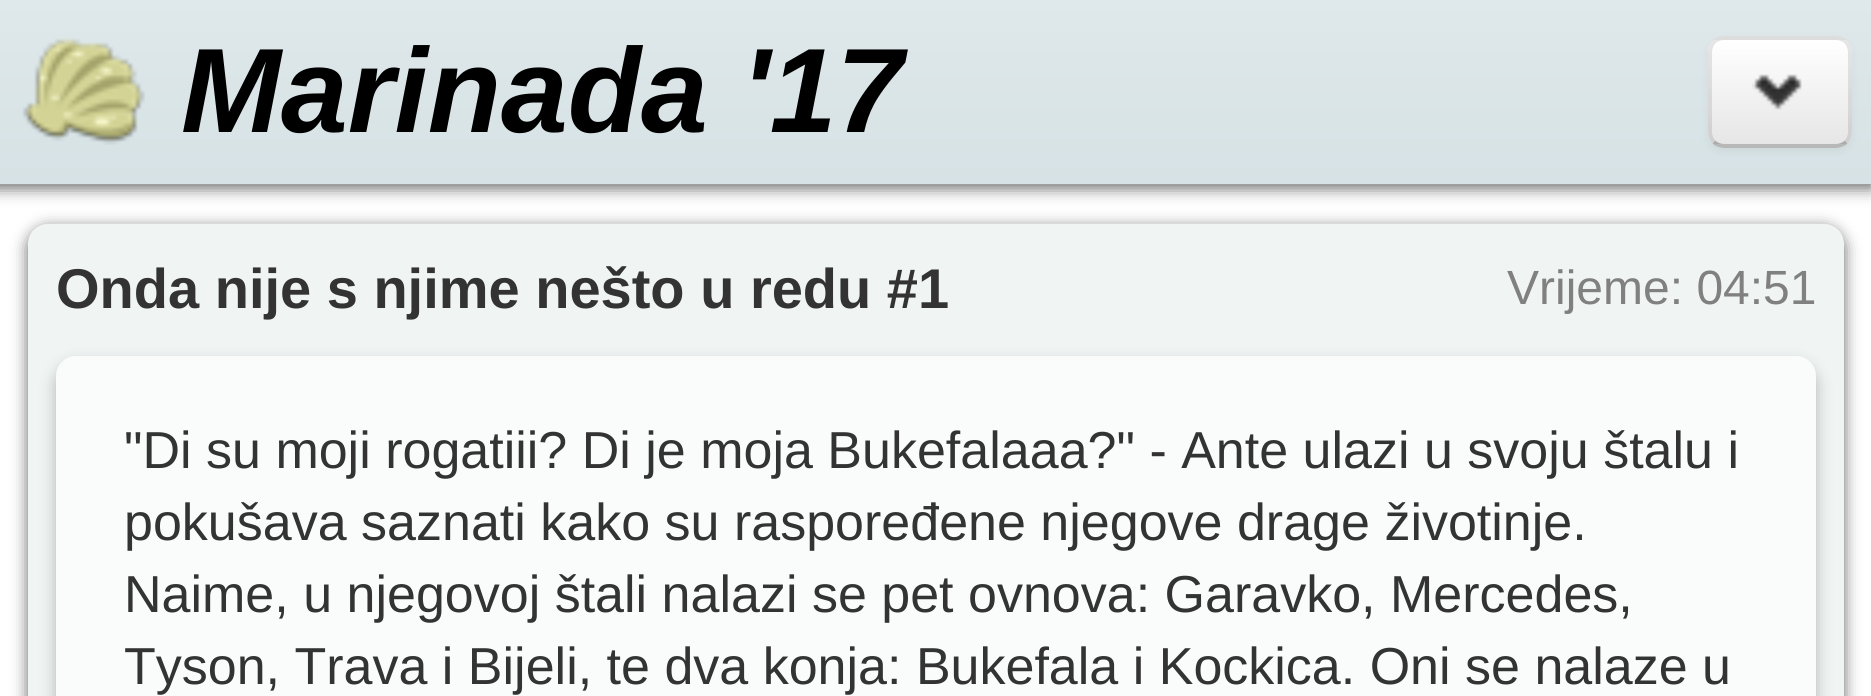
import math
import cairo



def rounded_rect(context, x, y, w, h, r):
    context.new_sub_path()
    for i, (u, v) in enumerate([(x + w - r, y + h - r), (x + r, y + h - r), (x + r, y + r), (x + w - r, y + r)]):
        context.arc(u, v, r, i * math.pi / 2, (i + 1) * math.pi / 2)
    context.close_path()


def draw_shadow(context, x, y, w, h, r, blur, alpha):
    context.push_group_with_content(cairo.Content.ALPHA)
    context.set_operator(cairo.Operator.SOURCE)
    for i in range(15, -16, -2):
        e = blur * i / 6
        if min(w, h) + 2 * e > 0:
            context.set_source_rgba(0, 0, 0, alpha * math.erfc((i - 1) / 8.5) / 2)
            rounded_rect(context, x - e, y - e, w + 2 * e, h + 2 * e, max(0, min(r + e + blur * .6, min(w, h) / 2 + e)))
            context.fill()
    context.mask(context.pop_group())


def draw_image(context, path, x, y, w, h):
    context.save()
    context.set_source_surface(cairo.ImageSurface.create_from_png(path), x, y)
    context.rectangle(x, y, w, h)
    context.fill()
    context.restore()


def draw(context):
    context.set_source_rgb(1, 1, 1)
    context.paint()
    context.set_source_rgb(102 / 255, 102 / 255, 102 / 255)
    draw_shadow(context, -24, 4, 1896, 184, 0, 8, 1)
    gradient = cairo.LinearGradient(-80, 0, -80, 184)
    gradient.add_color_stop_rgba(0, 223 / 255, 232 / 255, 235 / 255, 1)
    gradient.add_color_stop_rgba(1, 214 / 255, 226 / 255, 229 / 255, 1)
    context.set_source(gradient)
    context.rectangle(0, 0, 1871, 184)
    context.fill()
    draw_image(context, "images/1.png", 22, 38, 123, 107)
    context.set_source_rgb(0, 0, 0)
    draw_shadow(context, 1708, 40, 144, 112, 16, 4, 0.05)
    context.set_source_rgb(245 / 255, 245 / 255, 245 / 255)
    rounded_rect(context, 1708, 36, 144, 112, 16)
    context.fill()
    context.save()
    rounded_rect(context, 1708, 36, 144, 112, 16)
    context.clip()
    gradient = cairo.LinearGradient(1780, 40, 1780, 144)
    gradient.add_color_stop_rgba(0, 1, 1, 1, 1)
    gradient.add_color_stop_rgba(1, 230 / 255, 230 / 255, 230 / 255, 1)
    context.set_source(gradient)
    context.rectangle(1708, 40, 144, 104)
    context.fill()
    context.restore()
    context.new_path()
    context.move_to(1846, 142)
    context.curve_to(1843.5, 144.5, 1839.5, 146, 1836, 146)
    context.line_to(1724, 146)
    context.curve_to(1720.5, 146, 1716.5, 144.5, 1714, 142)
    context.set_source_rgba(0, 0, 0, 0.25)
    context.set_line_width(4)
    context.stroke()
    context.new_path()
    context.move_to(1714, 142)
    context.curve_to(1711.5, 139.5, 1710, 135.5, 1710, 132)
    context.line_to(1710, 52)
    context.curve_to(1710, 48.5, 1711.5, 44.5, 1714, 42)
    context.curve_to(1716.5, 39.5, 1720.5, 38, 1724, 38)
    context.line_to(1836, 38)
    context.curve_to(1839.5, 38, 1843.5, 39.5, 1846, 42)
    context.curve_to(1848.5, 44.5, 1850, 48.5, 1850, 52)
    context.line_to(1850, 132)
    context.curve_to(1850, 135.5, 1848.5, 139.5, 1846, 142)
    context.set_source_rgba(0, 0, 0, 0.1)
    context.stroke()
    draw_image(context, "images/2.png", 1752, 74, 50, 36)
    context.set_source_rgb(102 / 255, 102 / 255, 102 / 255)
    draw_shadow(context, 28, 228, 1816, 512, 20, 8, 1)
    context.set_source_rgb(240 / 255, 245 / 255, 244 / 255)
    rounded_rect(context, 28, 224, 1816, 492, 20)
    context.fill()
    context.set_source_rgb(128 / 255, 128 / 255, 128 / 255)
    draw_shadow(context, 56, 364, 1760, 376, 20, 8, 0.55)
    context.set_source_rgb(250 / 255, 252 / 255, 252 / 255)
    rounded_rect(context, 56, 356, 1760, 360, 20)
    context.fill()
    context.select_font_face("Liberation Sans", cairo.FontSlant.ITALIC, cairo.FontWeight.BOLD)
    context.set_font_size(120)
    context.set_source_rgb(0, 0, 0)
    context.move_to(181, 132)
    context.show_text("Marinada '17")
    context.select_font_face("Liberation Sans", cairo.FontSlant.NORMAL, cairo.FontWeight.BOLD)
    context.set_font_size(56)
    context.set_source_rgb(51 / 255, 51 / 255, 51 / 255)
    context.move_to(56, 308)
    context.show_text("Onda nije s njime nešto u redu #1")
    context.select_font_face("Liberation Sans")
    context.set_font_size(52)
    context.move_to(124, 468)
    context.show_text("\"Di su moji rogatiii? Di je moja Bukefalaaa?\" - Ante ulazi u svoju štalu i")
    context.move_to(124, 540)
    context.show_text("pokušava saznati kako su raspoređene njegove drage životinje.")
    context.move_to(124, 612)
    context.show_text("Naime, u njegovoj štali nalazi se pet ovnova: Garavko, Mercedes,")
    context.move_to(124, 684)
    context.show_text("Tyson, Trava i Bijeli, te dva konja: Bukefala i Kockica. Oni se nalaze u")
    context.set_font_size(48)
    context.set_source_rgb(128 / 255, 128 / 255, 128 / 255)
    context.move_to(1507, 304)
    context.show_text("Vrijeme: 04:51")


surface = cairo.ImageSurface(cairo.Format.RGB24, 1871, 696)
context = cairo.Context(surface)
options = cairo.FontOptions()
options.set_hint_metrics(cairo.HintMetrics.OFF)
options.set_hint_style(cairo.HintStyle.NONE)
context.set_font_options(options)
context.set_miter_limit(4)
draw(context)
surface.write_to_png("out.png")
